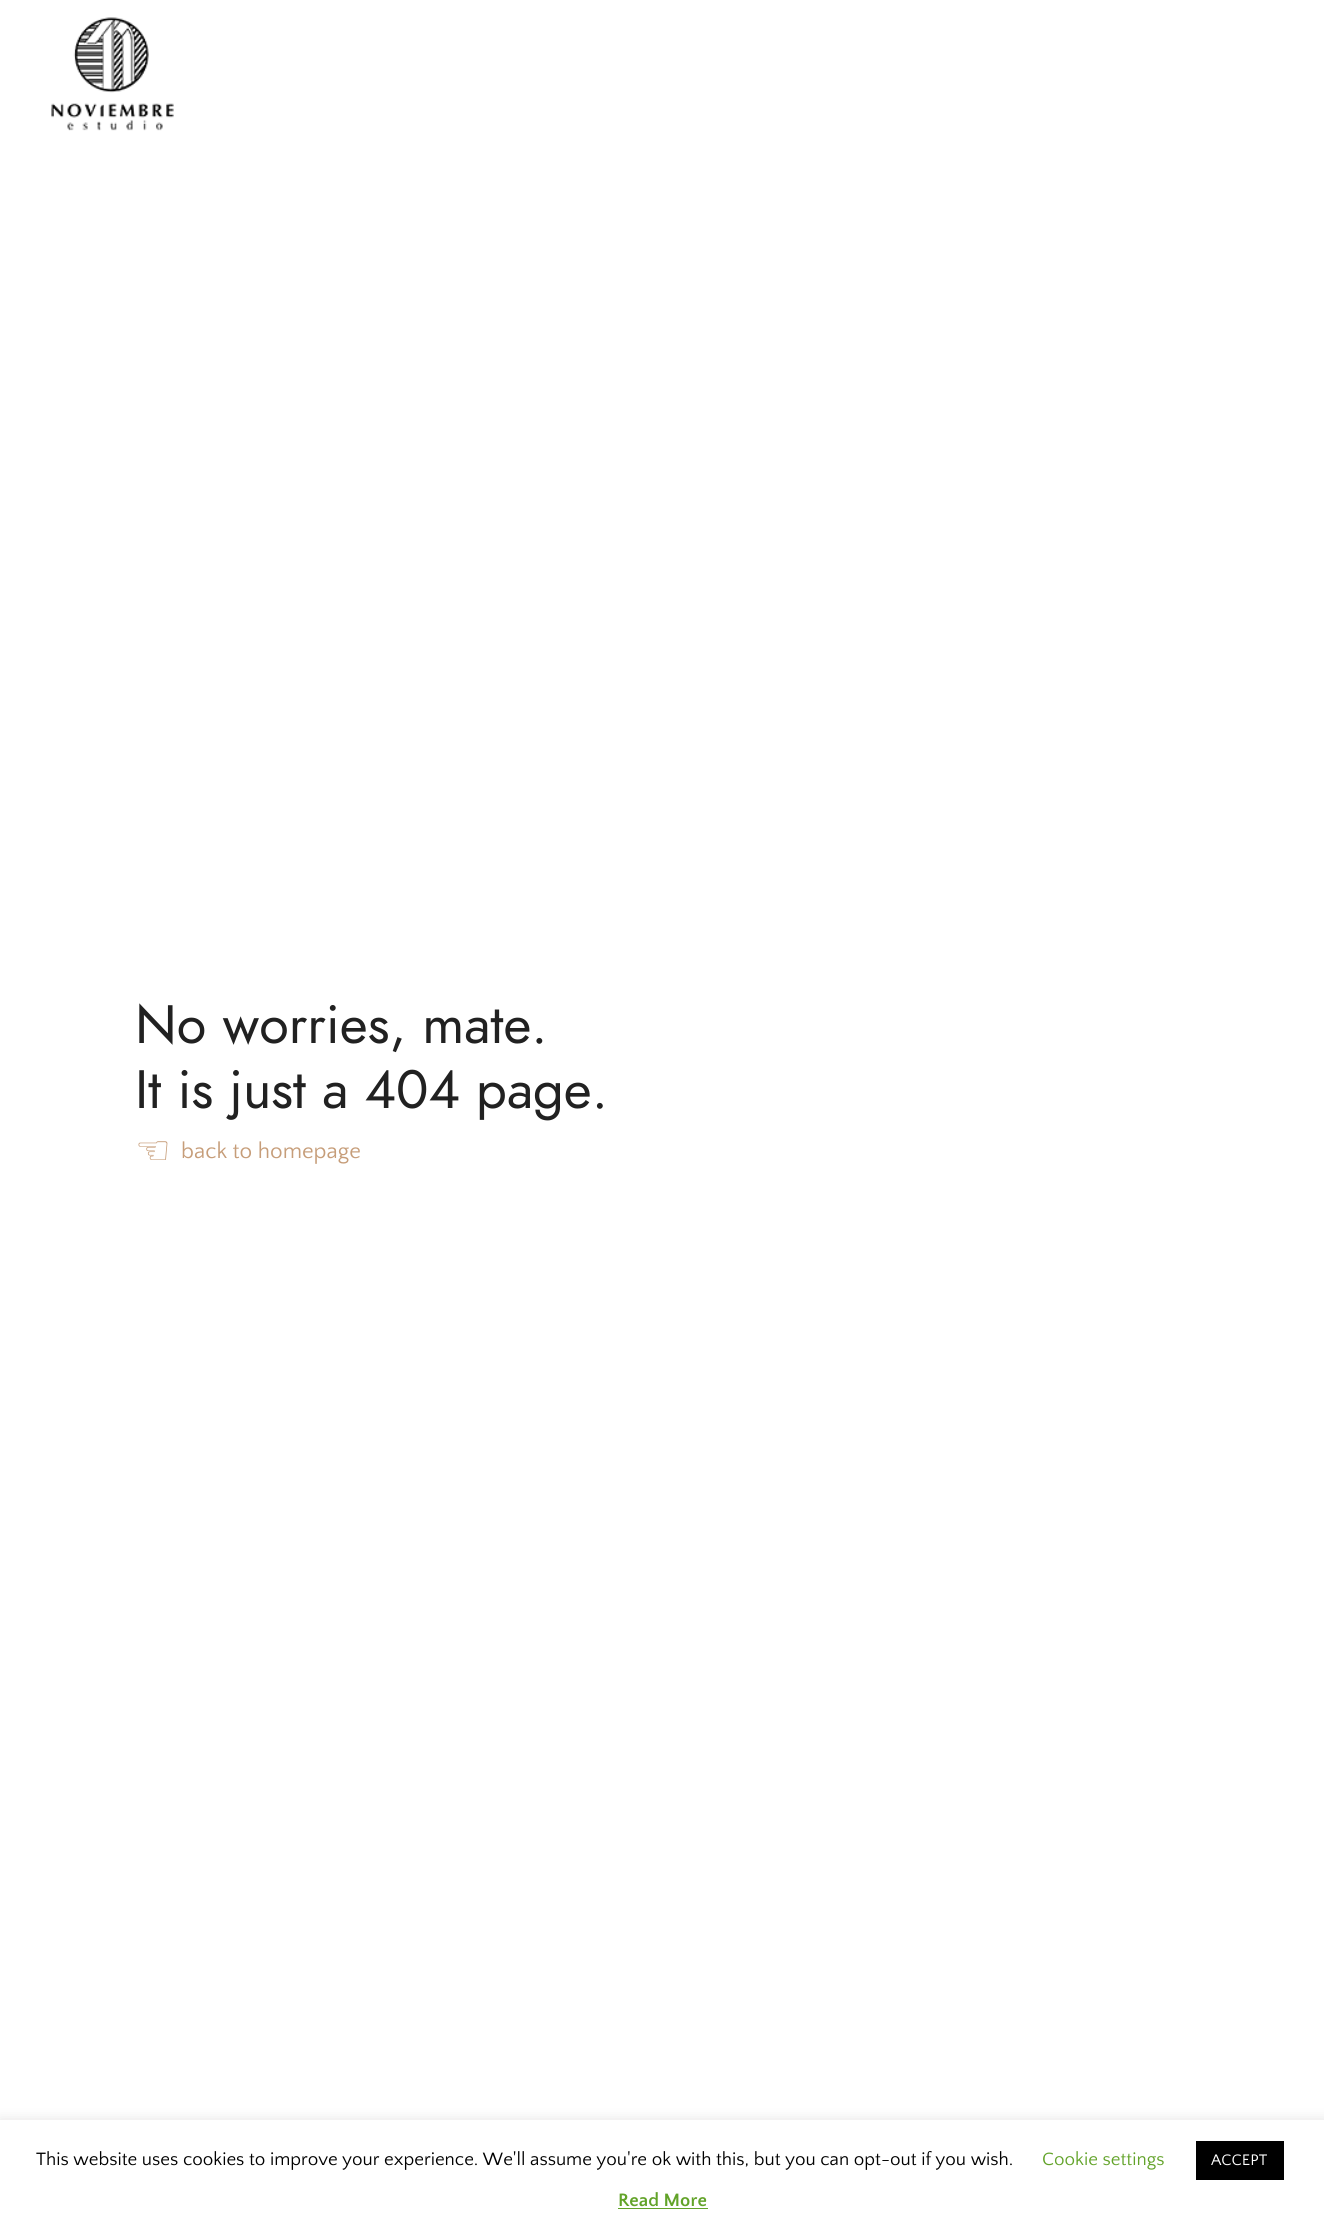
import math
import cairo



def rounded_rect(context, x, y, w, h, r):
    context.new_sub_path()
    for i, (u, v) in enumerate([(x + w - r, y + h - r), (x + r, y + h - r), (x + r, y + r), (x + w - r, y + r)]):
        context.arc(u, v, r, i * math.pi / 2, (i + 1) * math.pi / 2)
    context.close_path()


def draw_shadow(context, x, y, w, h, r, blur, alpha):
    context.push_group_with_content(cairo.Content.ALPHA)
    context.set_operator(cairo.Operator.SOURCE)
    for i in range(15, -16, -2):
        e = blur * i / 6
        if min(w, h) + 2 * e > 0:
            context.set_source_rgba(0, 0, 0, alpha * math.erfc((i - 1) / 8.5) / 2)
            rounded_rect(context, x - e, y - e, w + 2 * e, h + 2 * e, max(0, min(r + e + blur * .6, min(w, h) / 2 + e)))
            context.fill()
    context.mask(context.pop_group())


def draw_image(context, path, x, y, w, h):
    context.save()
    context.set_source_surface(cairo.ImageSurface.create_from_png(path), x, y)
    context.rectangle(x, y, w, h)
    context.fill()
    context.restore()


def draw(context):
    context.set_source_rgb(1, 1, 1)
    context.paint()
    draw_image(context, "images/1.png", 51, 17, 123, 114)
    context.set_source_rgb(172 / 255, 171 / 255, 171 / 255)
    draw_shadow(context, 0, 2119, 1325, 110, 0, 6, 0.3)
    context.set_source_rgb(1, 1, 1)
    context.rectangle(0, 2120, 1324, 109)
    context.fill()
    context.set_source_rgb(0, 0, 0)
    context.rectangle(1196, 2141, 88, 39)
    context.fill()
    context.set_source_rgb(98 / 255, 163 / 255, 41 / 255)
    context.rectangle(618, 2208, 90, 1)
    context.fill()
    context.select_font_face("Jost")
    context.set_font_size(54)
    context.set_source_rgb(33 / 255, 33 / 255, 33 / 255)
    context.move_to(135, 1043)
    context.show_text("No worries, mate.")
    context.move_to(135, 1108)
    context.show_text("It is just a 404 page.")
    context.select_font_face("DejaVu Sans")
    context.set_font_size(40)
    context.set_source_rgb(198 / 255, 157 / 255, 121 / 255)
    context.move_to(135, 1164)
    context.show_text("☜")
    context.select_font_face("Quattrocento Sans")
    context.set_font_size(22.5)
    context.move_to(181, 1158)
    context.show_text("back to homepage")
    context.set_font_size(18.75)
    context.set_source_rgb(0, 0, 0)
    context.move_to(36, 2165)
    context.show_text("This website uses cookies to improve your experience. We'll assume you're ok with this, but you can opt-out if you wish.")
    context.set_source_rgb(98 / 255, 163 / 255, 41 / 255)
    context.move_to(1042, 2165)
    context.show_text("Cookie settings")
    context.set_font_size(16)
    context.set_source_rgb(1, 1, 1)
    context.move_to(1211, 2165)
    context.show_text("ACCEPT")
    context.select_font_face("Quattrocento Sans", cairo.FontSlant.NORMAL, cairo.FontWeight.BOLD)
    context.set_font_size(18.75)
    context.set_source_rgb(98 / 255, 163 / 255, 41 / 255)
    context.move_to(618, 2206)
    context.show_text("Read More")


surface = cairo.ImageSurface(cairo.Format.RGB24, 1324, 2229)
context = cairo.Context(surface)
options = cairo.FontOptions()
options.set_hint_metrics(cairo.HintMetrics.OFF)
options.set_hint_style(cairo.HintStyle.NONE)
context.set_font_options(options)
context.set_miter_limit(4)
draw(context)
surface.write_to_png("out.png")
